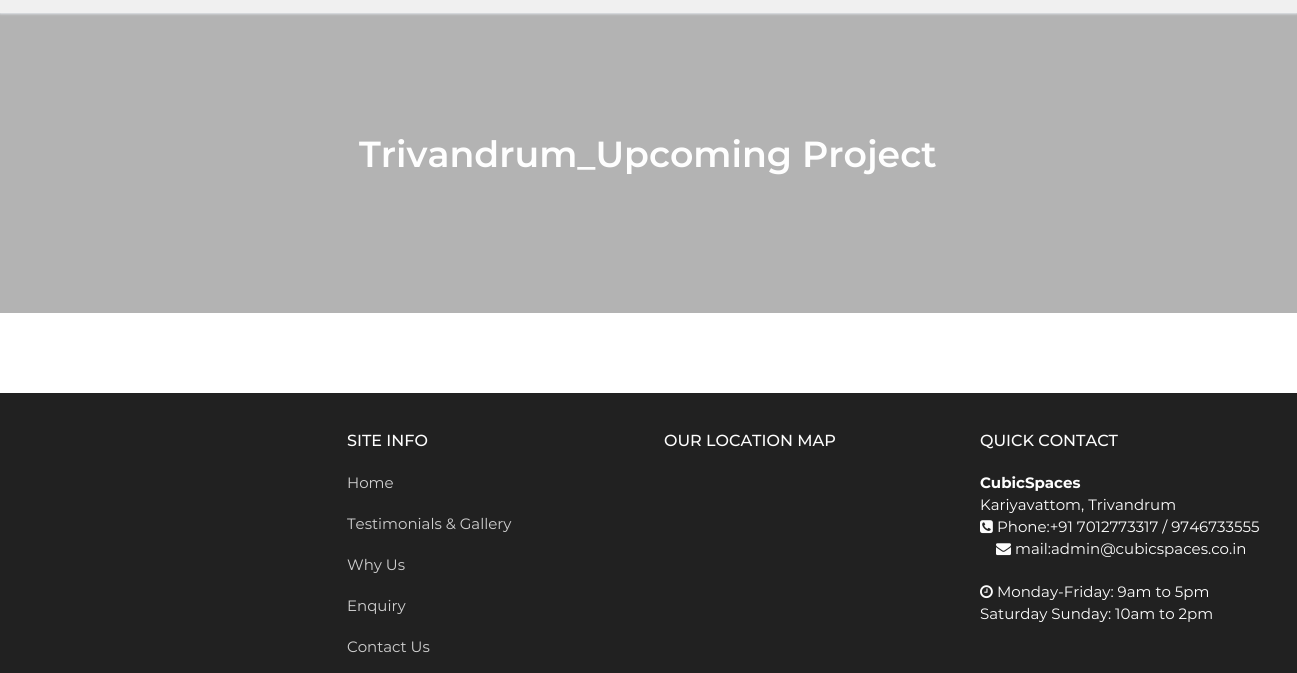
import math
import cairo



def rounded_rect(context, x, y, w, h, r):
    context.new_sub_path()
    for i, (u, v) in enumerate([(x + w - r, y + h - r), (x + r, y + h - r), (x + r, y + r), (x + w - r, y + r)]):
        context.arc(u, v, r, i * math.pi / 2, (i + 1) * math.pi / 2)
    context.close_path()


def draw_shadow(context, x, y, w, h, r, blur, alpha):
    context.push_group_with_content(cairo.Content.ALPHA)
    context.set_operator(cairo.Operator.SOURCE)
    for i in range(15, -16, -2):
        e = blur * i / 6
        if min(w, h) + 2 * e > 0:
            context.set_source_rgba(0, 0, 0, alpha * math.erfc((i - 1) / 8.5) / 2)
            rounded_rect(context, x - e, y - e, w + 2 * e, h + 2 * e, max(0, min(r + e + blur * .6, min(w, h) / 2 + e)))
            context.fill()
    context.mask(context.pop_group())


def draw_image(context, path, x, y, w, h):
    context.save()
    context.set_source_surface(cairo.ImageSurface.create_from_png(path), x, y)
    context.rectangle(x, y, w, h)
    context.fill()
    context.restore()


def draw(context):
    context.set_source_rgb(1, 1, 1)
    context.paint()
    context.set_source_rgb(179 / 255, 179 / 255, 179 / 255)
    context.rectangle(0, 13, 1297, 300)
    context.fill()
    context.set_source_rgb(225 / 255, 229 / 255, 234 / 255)
    draw_shadow(context, 0, -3, 1297, 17, 0, 1, 1)
    context.set_source_rgb(240 / 255, 240 / 255, 240 / 255)
    context.rectangle(0, 0, 1297, 13)
    context.fill()
    context.set_source_rgb(33 / 255, 33 / 255, 33 / 255)
    context.rectangle(0, 393, 1297, 280)
    context.fill()
    draw_image(context, "images/1.png", 980, 520, 13, 14)
    draw_image(context, "images/2.png", 996, 543, 15, 13)
    draw_image(context, "images/3.png", 980, 585, 13, 14)
    context.select_font_face("Montserrat SemiBold")
    context.set_font_size(36.25)
    context.set_source_rgb(254 / 255, 254 / 255, 254 / 255)
    context.move_to(359, 167)
    context.show_text("Trivandrum_Upcoming Project")
    context.select_font_face("Montserrat Medium")
    context.set_font_size(16)
    context.move_to(347, 446)
    context.show_text("SITE INFO")
    context.select_font_face("Montserrat")
    context.set_font_size(15)
    context.set_source_rgb(208 / 255, 208 / 255, 208 / 255)
    context.move_to(347, 488)
    context.show_text("Home")
    context.move_to(347, 529)
    context.show_text("Testimonials & Gallery")
    context.move_to(347, 570)
    context.show_text("Why Us")
    context.move_to(347, 611)
    context.show_text("Enquiry")
    context.move_to(347, 652)
    context.show_text("Contact Us")
    context.select_font_face("Montserrat Medium")
    context.set_font_size(16)
    context.set_source_rgb(254 / 255, 254 / 255, 254 / 255)
    context.move_to(664, 446)
    context.show_text("OUR LOCATION MAP")
    context.move_to(980, 446)
    context.show_text("QUICK CONTACT")
    context.select_font_face("Montserrat", cairo.FontSlant.NORMAL, cairo.FontWeight.BOLD)
    context.set_font_size(15)
    context.move_to(980, 488)
    context.show_text("CubicSpaces")
    context.select_font_face("Montserrat")
    context.move_to(980, 510)
    context.show_text("Kariyavattom, Trivandrum")
    context.move_to(997, 532)
    context.show_text("Phone:+91 7012773317 / 9746733555")
    context.move_to(1015, 554)
    context.show_text("mail:admin@cubicspaces.co.in")
    context.move_to(997, 597)
    context.show_text("Monday-Friday: 9am to 5pm")
    context.move_to(980, 619)
    context.show_text("Saturday Sunday: 10am to 2pm")


surface = cairo.ImageSurface(cairo.Format.RGB24, 1297, 673)
context = cairo.Context(surface)
options = cairo.FontOptions()
options.set_hint_metrics(cairo.HintMetrics.OFF)
options.set_hint_style(cairo.HintStyle.NONE)
context.set_font_options(options)
context.set_miter_limit(4)
draw(context)
surface.write_to_png("out.png")
